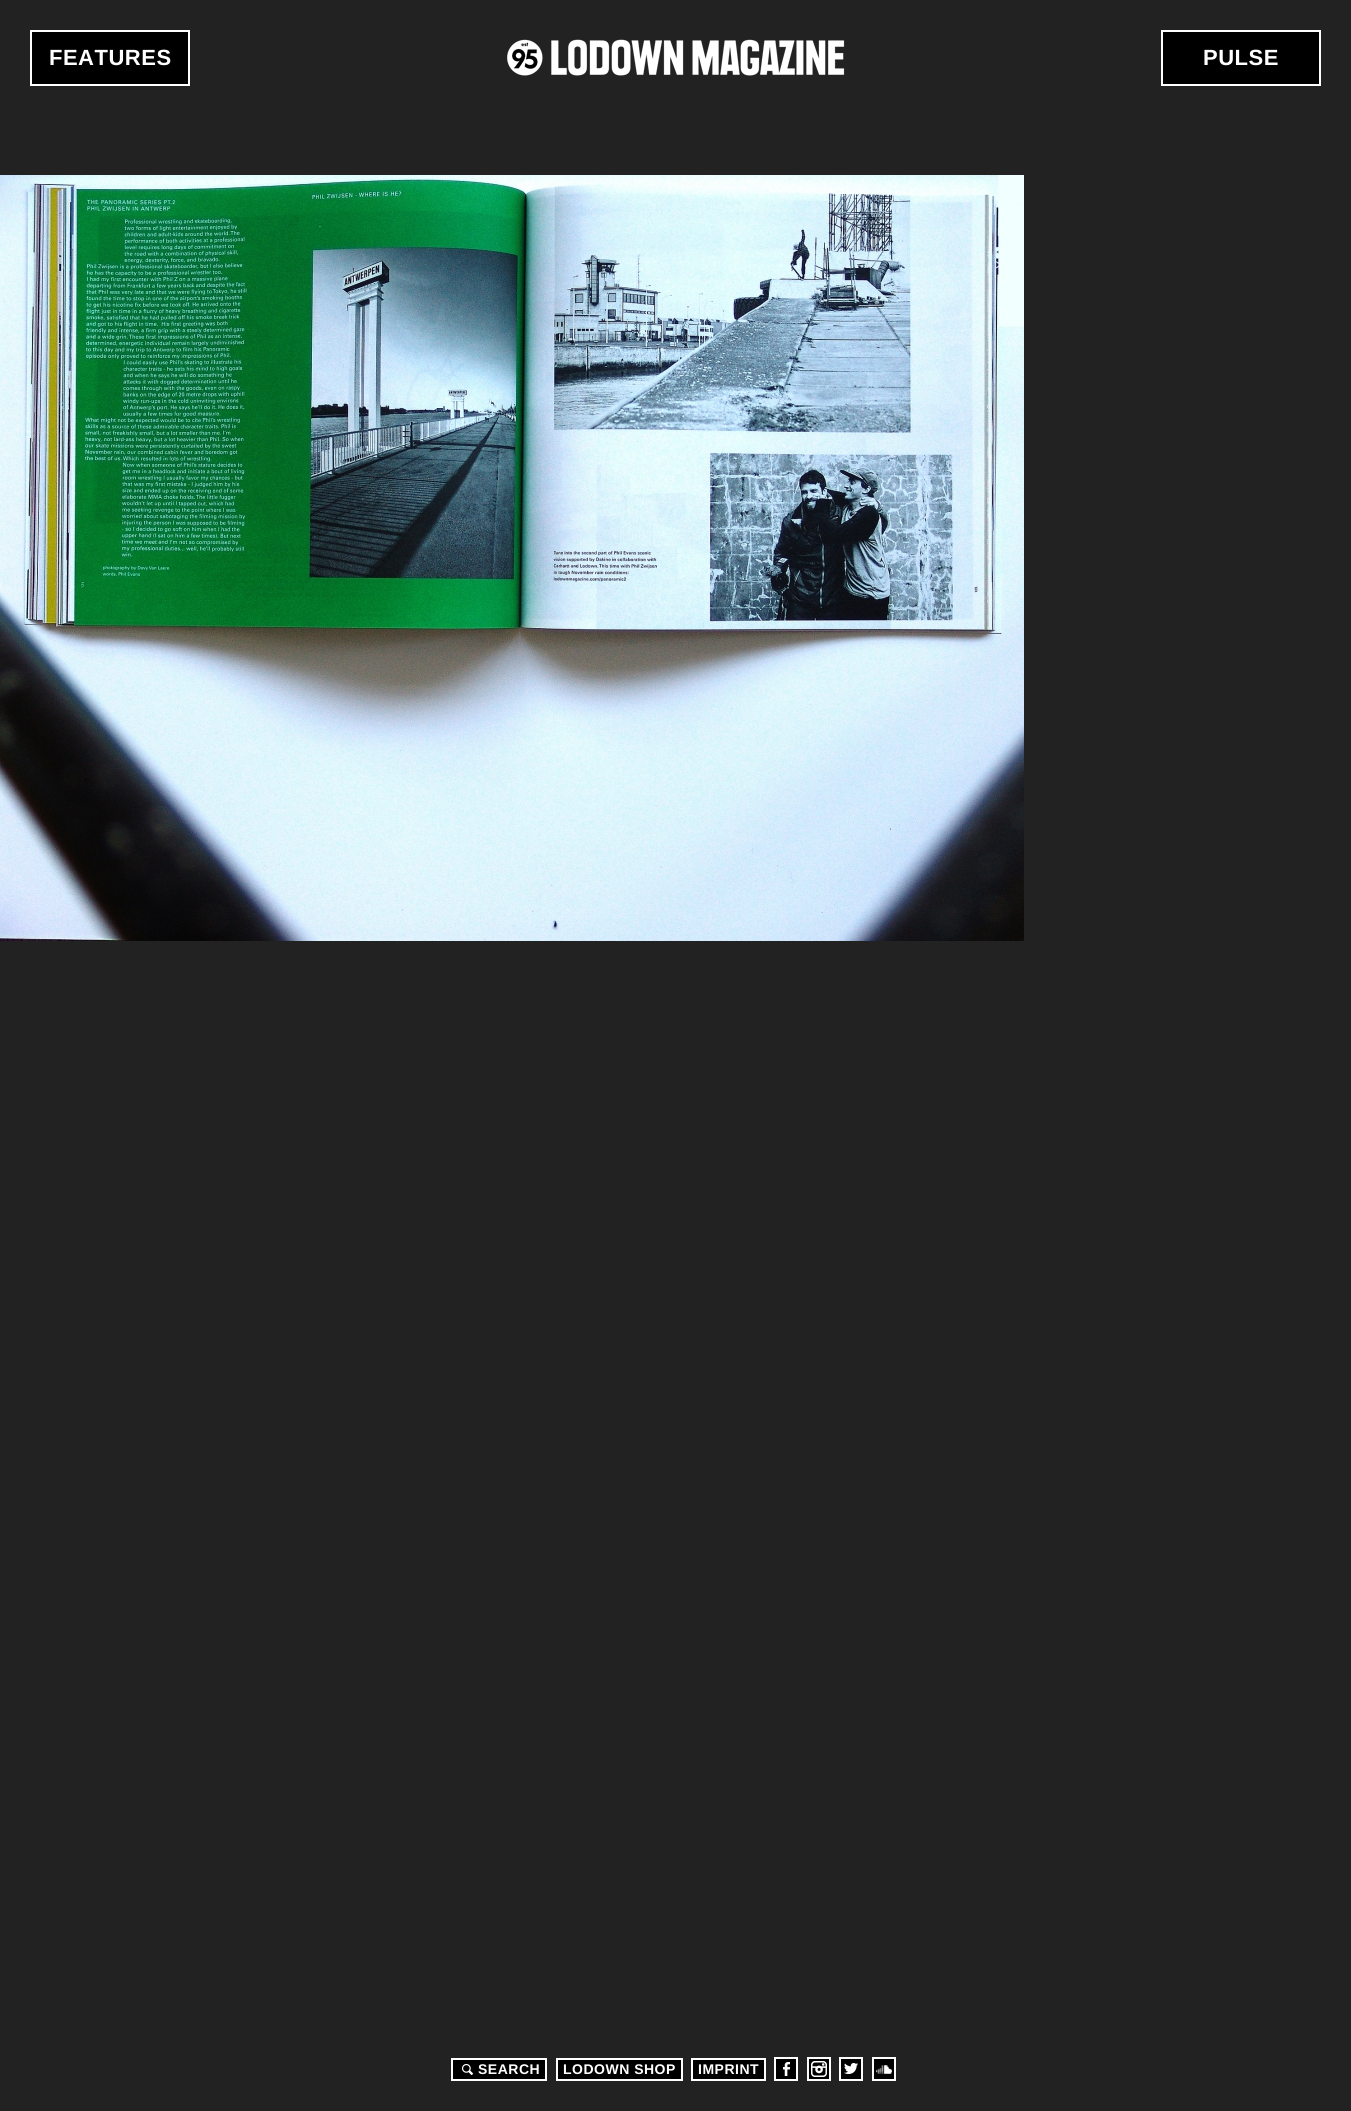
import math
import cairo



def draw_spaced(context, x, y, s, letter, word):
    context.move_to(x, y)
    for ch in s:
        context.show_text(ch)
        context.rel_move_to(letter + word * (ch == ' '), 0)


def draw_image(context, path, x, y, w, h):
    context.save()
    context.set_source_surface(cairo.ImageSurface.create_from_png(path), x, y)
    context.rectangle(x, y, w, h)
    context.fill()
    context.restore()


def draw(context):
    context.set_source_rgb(34 / 255, 34 / 255, 34 / 255)
    context.paint()
    draw_image(context, "images/1.png", 507, 39, 338, 37)
    context.set_source_rgb(0, 0, 0)
    context.rectangle(31, 31, 158, 54)
    context.fill_preserve()
    context.set_source_rgb(1, 1, 1)
    context.stroke()
    context.set_source_rgb(0, 0, 0)
    context.rectangle(1162, 31, 158, 54)
    context.fill_preserve()
    context.set_source_rgb(1, 1, 1)
    context.stroke()
    draw_image(context, "images/2.png", 0, 175, 1024, 766)
    context.set_source_rgb(0, 0, 0)
    context.rectangle(452, 2059, 94, 21)
    context.fill_preserve()
    context.set_source_rgb(1, 1, 1)
    context.stroke()
    draw_image(context, "images/3.png", 462, 2064, 11, 11)
    context.set_source_rgb(0, 0, 0)
    context.rectangle(557, 2059, 125, 21)
    context.fill_preserve()
    context.set_source_rgb(1, 1, 1)
    context.stroke()
    context.set_source_rgb(0, 0, 0)
    context.rectangle(692, 2059, 73, 21)
    context.fill_preserve()
    context.set_source_rgb(1, 1, 1)
    context.stroke()
    context.set_source_rgb(0, 0, 0)
    context.rectangle(776, 2059, 20, 20)
    context.fill()
    draw_image(context, "images/4.png", 783, 2062, 7, 14)
    context.rectangle(775, 2058, 22, 22)
    context.set_source_rgb(1, 1, 1)
    context.stroke()
    context.set_source_rgb(0, 0, 0)
    context.rectangle(809, 2059, 20, 20)
    context.fill()
    draw_image(context, "images/5.png", 811, 2061, 16, 16)
    context.rectangle(808, 2058, 22, 22)
    context.set_source_rgb(1, 1, 1)
    context.stroke()
    context.set_source_rgb(0, 0, 0)
    context.rectangle(841, 2059, 20, 20)
    context.fill()
    draw_image(context, "images/6.png", 844, 2063, 14, 11)
    context.rectangle(840, 2058, 22, 22)
    context.set_source_rgb(1, 1, 1)
    context.stroke()
    context.set_source_rgb(0, 0, 0)
    context.rectangle(874, 2059, 20, 20)
    context.fill()
    draw_image(context, "images/7.png", 876, 2065, 16, 9)
    context.rectangle(873, 2058, 22, 22)
    context.set_source_rgb(1, 1, 1)
    context.stroke()
    context.select_font_face("Liberation Sans", cairo.FontSlant.NORMAL, cairo.FontWeight.BOLD)
    context.set_font_size(22)
    draw_spaced(context, 49, 65, "FEATURES", 0.5, 0)
    draw_spaced(context, 1203, 65, "PULSE", 0.5, 0)
    context.set_font_size(14)
    draw_spaced(context, 478, 2074, "SEARCH", 0.5, 0)
    draw_spaced(context, 563, 2074, "LODOWN SHOP", 0.5, 0)
    draw_spaced(context, 698, 2074, "IMPRINT", 0.5, 0)


surface = cairo.ImageSurface(cairo.Format.RGB24, 1351, 2111)
context = cairo.Context(surface)
options = cairo.FontOptions()
options.set_hint_metrics(cairo.HintMetrics.OFF)
options.set_hint_style(cairo.HintStyle.NONE)
context.set_font_options(options)
context.set_miter_limit(4)
draw(context)
surface.write_to_png("out.png")
